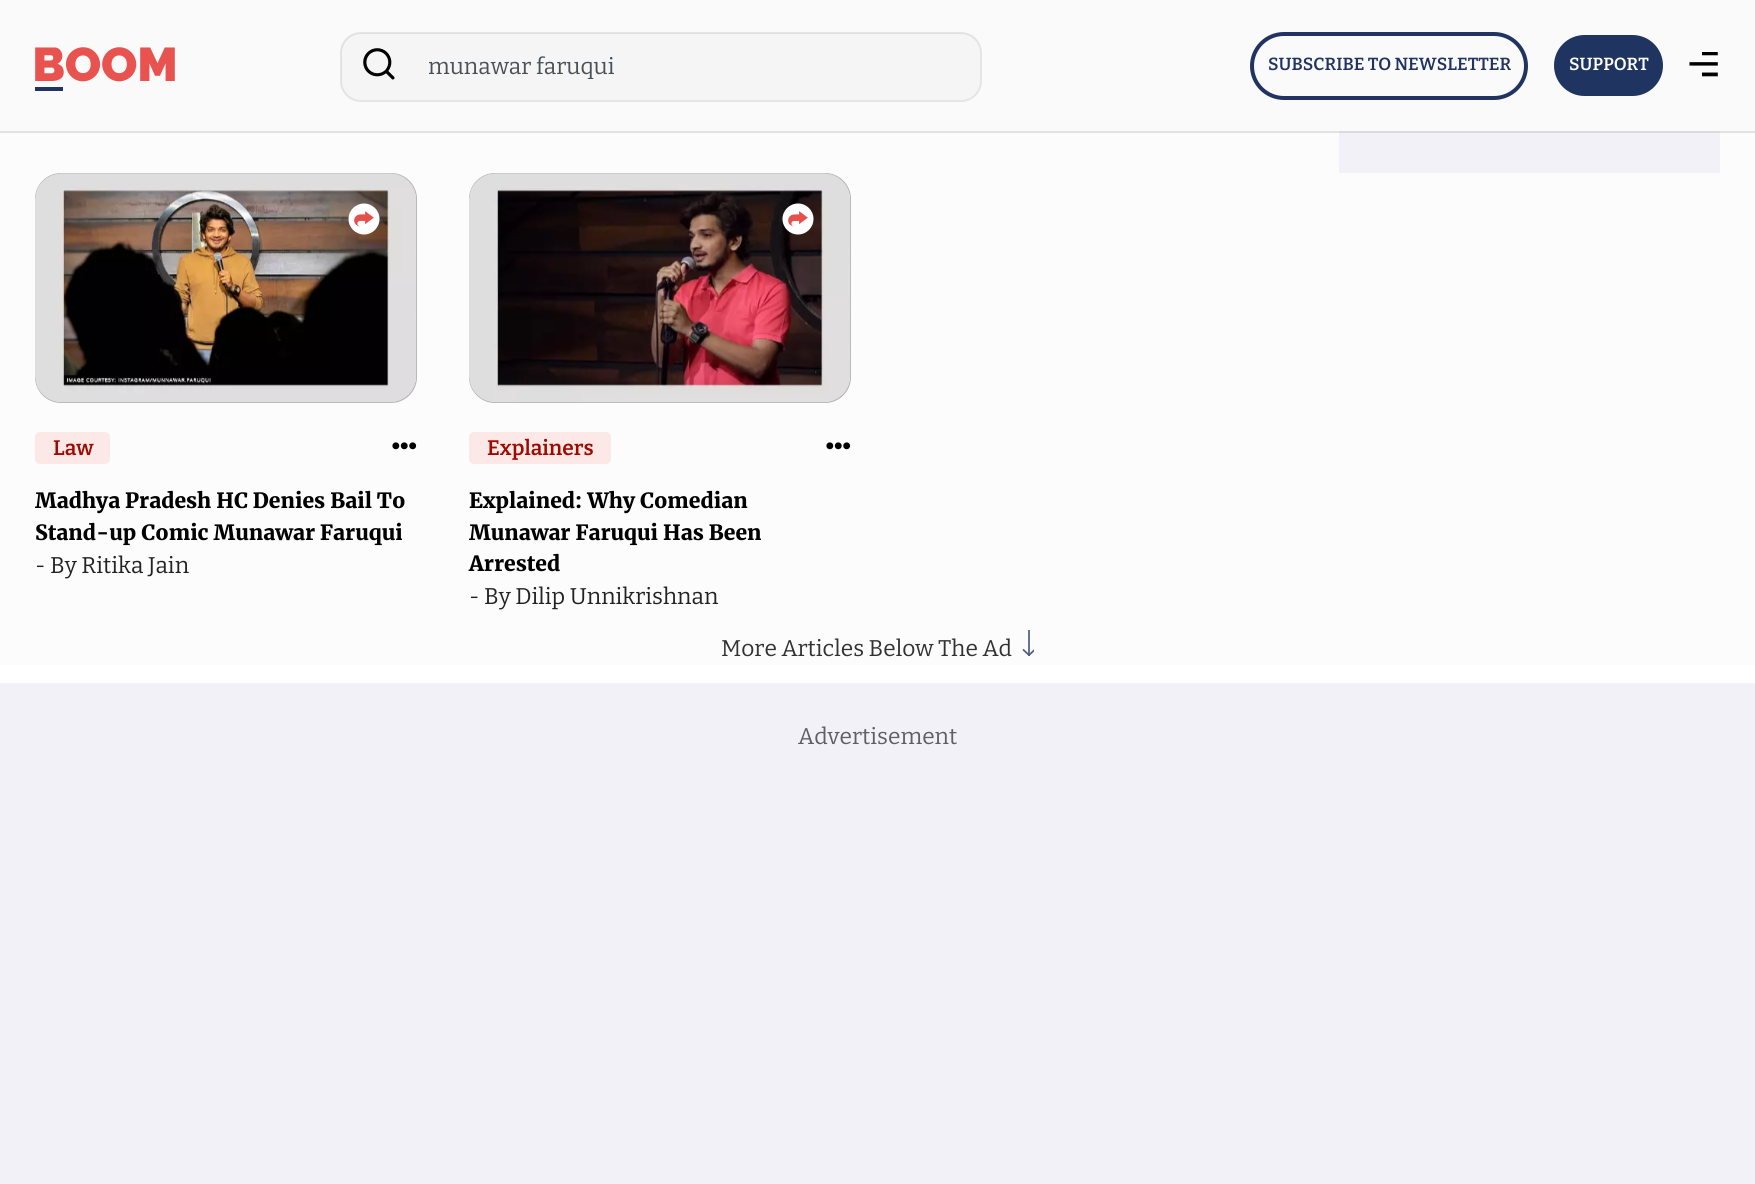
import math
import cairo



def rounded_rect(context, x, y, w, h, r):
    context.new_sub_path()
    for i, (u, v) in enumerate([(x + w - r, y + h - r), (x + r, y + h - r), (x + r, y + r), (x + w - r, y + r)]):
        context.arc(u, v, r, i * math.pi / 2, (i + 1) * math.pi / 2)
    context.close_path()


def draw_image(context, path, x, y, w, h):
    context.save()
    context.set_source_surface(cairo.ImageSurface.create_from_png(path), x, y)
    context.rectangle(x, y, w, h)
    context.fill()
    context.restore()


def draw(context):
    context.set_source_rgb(1, 1, 1)
    context.paint()
    context.set_source_rgb(250 / 255, 250 / 255, 250 / 255)
    context.rectangle(0, 0, 1755, 131)
    context.fill()
    draw_image(context, "images/1.png", 35, 47, 140, 44)
    context.set_source_rgb(245 / 255, 245 / 255, 245 / 255)
    rounded_rect(context, 341, 33, 639, 67, 19)
    context.fill()
    rounded_rect(context, 341, 33, 640, 68, 20)
    context.set_source_rgba(112 / 255, 112 / 255, 112 / 255, 0.15)
    context.stroke()
    draw_image(context, "images/2.png", 363, 48, 32, 32)
    rounded_rect(context, 1252, 34, 274, 64, 32)
    context.set_source_rgb(32 / 255, 51 / 255, 97 / 255)
    context.set_line_width(4)
    context.stroke()
    context.set_source_rgb(32 / 255, 52 / 255, 97 / 255)
    rounded_rect(context, 1554, 35, 109, 61, 30.5)
    context.fill()
    draw_image(context, "images/3.png", 1689, 52, 29, 25)
    context.set_source_rgb(227 / 255, 227 / 255, 227 / 255)
    context.rectangle(0, 131, 1755, 2)
    context.fill()
    context.set_source_rgb(252 / 255, 252 / 255, 252 / 255)
    context.rectangle(0, 133, 1755, 532)
    context.fill()
    context.set_source_rgb(241 / 255, 241 / 255, 247 / 255)
    context.rectangle(1339, 133, 381, 40)
    context.fill()
    context.set_source_rgb(218 / 255, 218 / 255, 223 / 255)
    context.rectangle(1339, 131, 381, 2)
    context.fill()
    context.set_source_rgb(180 / 255, 180 / 255, 180 / 255)
    rounded_rect(context, 35, 173, 382, 230, 26)
    context.fill()
    draw_image(context, "images/4.png", 35, 173, 382, 230)
    draw_image(context, "images/5.png", 348, 203, 32, 32)
    context.set_source_rgb(252 / 255, 232 / 255, 231 / 255)
    rounded_rect(context, 35, 432, 75, 32, 5)
    context.fill()
    draw_image(context, "images/6.png", 392, 442, 25, 8)
    context.set_source_rgb(180 / 255, 180 / 255, 180 / 255)
    rounded_rect(context, 469, 173, 382, 230, 26)
    context.fill()
    draw_image(context, "images/7.png", 469, 173, 382, 230)
    draw_image(context, "images/8.png", 782, 203, 32, 32)
    context.set_source_rgb(252 / 255, 232 / 255, 231 / 255)
    rounded_rect(context, 469, 432, 142, 32, 5)
    context.fill()
    draw_image(context, "images/6.png", 826, 442, 25, 8)
    context.set_source_rgb(102 / 255, 115 / 255, 147 / 255)
    context.rectangle(1028, 630, 2, 26)
    context.fill()
    context.new_path()
    context.move_to(1029.5, 655.5)
    context.line_to(1023, 649.5)
    context.set_source_rgb(76 / 255, 91 / 255, 128 / 255)
    context.set_line_width(1.7)
    context.stroke()
    context.save()
    context.rectangle(1022, 630, 12, 26)
    context.clip()
    context.new_path()
    context.move_to(1028.5, 655.5)
    context.line_to(1035, 649.5)
    context.stroke()
    context.restore()
    context.set_source_rgb(241 / 255, 241 / 255, 247 / 255)
    context.rectangle(0, 683, 1755, 501)
    context.fill()
    context.save()
    context.rectangle(429, 53, 534, 26)
    context.clip()
    context.select_font_face("Bitter")
    context.set_font_size(22.75)
    context.set_source_rgb(73 / 255, 80 / 255, 87 / 255)
    context.move_to(428, 74)
    context.show_text("munawar faruqui")
    context.restore()
    context.select_font_face("Bitter SemiBold")
    context.set_font_size(17.5)
    context.set_source_rgb(32 / 255, 51 / 255, 97 / 255)
    context.move_to(1268, 70)
    context.show_text("SUBSCRIBE TO NEWSLETTER")
    context.set_source_rgb(1, 1, 1)
    context.move_to(1569, 70)
    context.show_text("SUPPORT")
    context.set_font_size(21)
    context.set_source_rgb(159 / 255, 10 / 255, 0)
    context.move_to(53, 455)
    context.show_text("Law")
    context.select_font_face("Merriweather Black")
    context.set_source_rgb(0, 0, 0)
    context.move_to(35, 508)
    context.show_text("Madhya Pradesh HC Denies Bail To")
    context.move_to(35, 540)
    context.show_text("Stand-up Comic Munawar Faruqui")
    context.select_font_face("Bitter")
    context.set_font_size(22.75)
    context.set_source_rgb(35 / 255, 35 / 255, 35 / 255)
    context.move_to(35, 573)
    context.show_text("- By Ritika Jain")
    context.select_font_face("Bitter SemiBold")
    context.set_font_size(21)
    context.set_source_rgb(159 / 255, 10 / 255, 0)
    context.move_to(487, 455)
    context.show_text("Explainers")
    context.select_font_face("Merriweather Black")
    context.set_source_rgb(0, 0, 0)
    context.move_to(469, 508)
    context.show_text("Explained: Why Comedian")
    context.move_to(469, 540)
    context.show_text("Munawar Faruqui Has Been")
    context.move_to(469, 571)
    context.show_text("Arrested")
    context.select_font_face("Bitter")
    context.set_font_size(22.75)
    context.set_source_rgb(35 / 255, 35 / 255, 35 / 255)
    context.move_to(469, 604)
    context.show_text("- By Dilip Unnikrishnan")
    context.set_source_rgb(50 / 255, 50 / 255, 50 / 255)
    context.move_to(721, 656)
    context.show_text("More Articles Below The Ad")
    context.set_source_rgb(96 / 255, 96 / 255, 99 / 255)
    context.move_to(798, 744)
    context.show_text("Advertisement")


surface = cairo.ImageSurface(cairo.Format.RGB24, 1755, 1184)
context = cairo.Context(surface)
options = cairo.FontOptions()
options.set_hint_metrics(cairo.HintMetrics.OFF)
options.set_hint_style(cairo.HintStyle.NONE)
context.set_font_options(options)
context.set_miter_limit(4)
draw(context)
surface.write_to_png("out.png")
